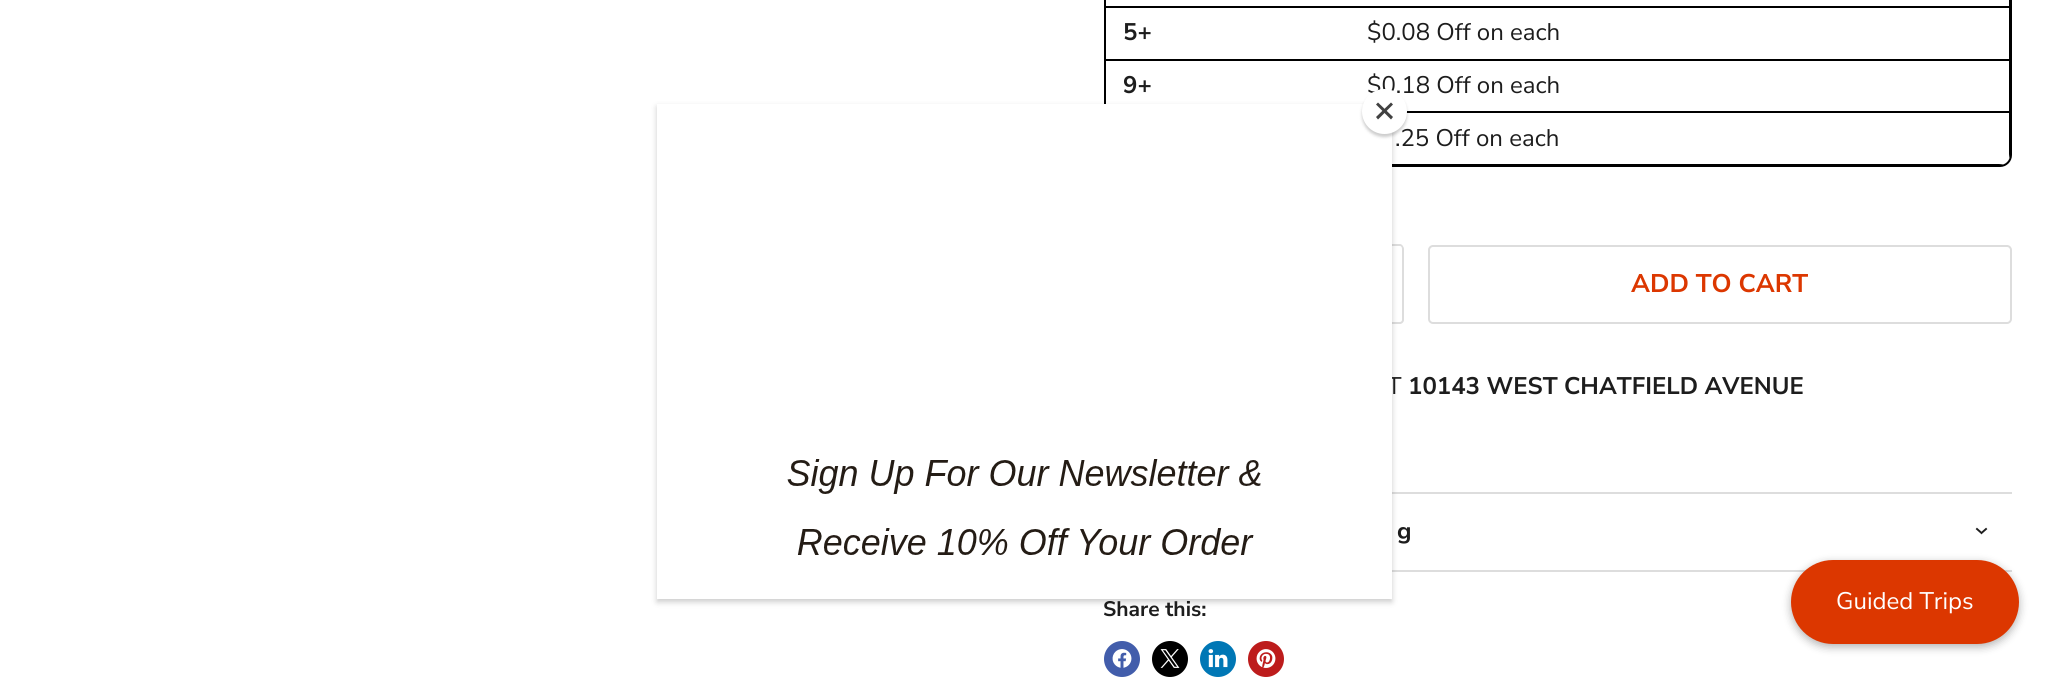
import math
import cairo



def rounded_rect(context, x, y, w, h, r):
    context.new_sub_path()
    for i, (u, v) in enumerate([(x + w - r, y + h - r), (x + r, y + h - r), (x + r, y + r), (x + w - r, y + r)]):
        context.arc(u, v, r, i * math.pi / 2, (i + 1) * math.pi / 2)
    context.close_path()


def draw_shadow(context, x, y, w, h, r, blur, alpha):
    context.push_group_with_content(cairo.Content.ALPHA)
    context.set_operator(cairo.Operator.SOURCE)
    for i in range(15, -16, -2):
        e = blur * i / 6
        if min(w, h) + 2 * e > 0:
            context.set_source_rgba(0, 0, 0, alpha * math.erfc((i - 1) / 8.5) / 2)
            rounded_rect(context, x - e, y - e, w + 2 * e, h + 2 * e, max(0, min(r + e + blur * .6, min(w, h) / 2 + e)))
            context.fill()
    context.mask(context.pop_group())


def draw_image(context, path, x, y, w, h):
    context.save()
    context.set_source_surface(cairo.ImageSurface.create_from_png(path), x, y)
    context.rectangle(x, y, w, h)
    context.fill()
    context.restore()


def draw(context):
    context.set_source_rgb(1, 1, 1)
    context.paint()
    rounded_rect(context, 1105, -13, 906, 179, 11)
    context.set_source_rgb(0, 0, 0)
    context.stroke()
    context.rectangle(1406, 111, 604, 2)
    context.fill()
    context.save()
    rounded_rect(context, 1106, -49, 904, 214, 11)
    context.clip()
    context.rectangle(2009, 111, 1, 54)
    context.fill()
    context.rectangle(1392, 164, 618, 1)
    context.fill()
    context.restore()
    context.set_source_rgb(221 / 255, 221 / 255, 221 / 255)
    context.set_fill_rule(cairo.FillRule.EVEN_ODD)
    context.new_path()
    context.move_to(1328, 244)
    context.line_to(1400, 244)
    context.curve_to(1402, 244, 1404, 247, 1404, 249)
    context.line_to(1404, 320)
    context.curve_to(1404, 322, 1402, 324, 1400, 324)
    context.line_to(1328, 324)
    context.close_path()
    context.move_to(1328, 246)
    context.line_to(1400, 246)
    context.curve_to(1401, 246, 1402, 247, 1402, 249)
    context.line_to(1402, 320)
    context.curve_to(1402, 321, 1401, 322, 1400, 322)
    context.line_to(1328, 322)
    context.close_path()
    context.fill()
    context.rectangle(1392, 492, 620, 2)
    context.fill()
    context.rectangle(1392, 570, 620, 2)
    context.fill()
    context.set_source_rgb(0, 0, 0)
    draw_shadow(context, 657, 107, 735, 495, 0, 3, 0.2)
    context.set_source_rgb(0, 0, 0)
    context.rectangle(1106, 6, 904, 2)
    context.fill()
    context.rectangle(1106, 59, 904, 2)
    context.fill()
    context.rectangle(2009, 59, 1, 54)
    context.fill()
    context.rectangle(2009, 0, 1, 60)
    context.fill()
    rounded_rect(context, 1429, 246, 582, 77, 4)
    context.set_source_rgb(221 / 255, 221 / 255, 221 / 255)
    context.stroke()
    context.new_path()
    context.move_to(1981.5, 533)
    context.line_to(1986, 529)
    context.move_to(1981.5, 533)
    context.line_to(1977, 529)
    context.set_source_rgb(29 / 255, 29 / 255, 29 / 255)
    context.set_line_width(1.9)
    context.set_line_cap(cairo.LineCap.SQUARE)
    context.stroke()
    context.set_source_rgb(66 / 255, 93 / 255, 171 / 255)
    context.arc(1122, 659, 18, 0, 2 * math.pi)
    context.fill()
    draw_image(context, "images/2.png", 1112, 649, 20, 19)
    context.set_source_rgb(0, 0, 0)
    context.arc(1170, 659, 18, 0, 2 * math.pi)
    context.fill()
    draw_image(context, "images/3.png", 1160, 649, 20, 19)
    context.set_source_rgb(0, 119 / 255, 181 / 255)
    context.arc(1218, 659, 18, 0, 2 * math.pi)
    context.fill()
    draw_image(context, "images/4.png", 1208, 649, 20, 19)
    context.set_source_rgb(189 / 255, 28 / 255, 28 / 255)
    context.arc(1266, 659, 18, 0, 2 * math.pi)
    context.fill()
    draw_image(context, "images/5.png", 1256, 649, 20, 19)
    context.set_source_rgb(0, 0, 0)
    draw_shadow(context, 1791, 563, 228, 84, 42, 4.5, 0.3)
    context.set_source_rgb(220 / 255, 55 / 255, 0)
    rounded_rect(context, 1791, 560, 228, 84, 42)
    context.fill()
    context.select_font_face("Nunito Sans", cairo.FontSlant.NORMAL, cairo.FontWeight.BOLD)
    context.set_font_size(24)
    context.set_source_rgb(29 / 255, 29 / 255, 29 / 255)
    context.move_to(1123, 40)
    context.show_text("5+")
    context.select_font_face("Nunito Sans")
    context.move_to(1367, 40)
    context.show_text("$0.08 Off on each")
    context.select_font_face("Nunito Sans", cairo.FontSlant.NORMAL, cairo.FontWeight.BOLD)
    context.move_to(1123, 93)
    context.show_text("9+")
    context.select_font_face("Nunito Sans")
    context.move_to(1367, 93)
    context.show_text("$0.18 Off on each")
    context.move_to(1395, 146)
    context.show_text(".25 Off on each")
    context.select_font_face("Nunito Sans", cairo.FontSlant.NORMAL, cairo.FontWeight.BOLD)
    context.set_font_size(25.5)
    context.set_source_rgb(220 / 255, 55 / 255, 0)
    context.move_to(1631, 292)
    context.show_text("ADD TO CART")
    context.select_font_face("Nunito Sans")
    context.set_font_size(24)
    context.set_source_rgb(29 / 255, 29 / 255, 29 / 255)
    context.move_to(1387, 394)
    context.show_text("T")
    draw_image(context, "images/1.png", 657, 104, 735, 495)
    context.set_source_rgb(0, 0, 0)
    draw_shadow(context, 1362, 92, 45, 45, 22.5, 1.5, 0.2)
    context.set_source_rgb(1, 1, 1)
    context.arc(1384.5, 111.5, 22.5, 0, 2 * math.pi)
    context.fill()
    context.set_source_rgb(65 / 255, 65 / 255, 65 / 255)
    context.set_fill_rule(cairo.FillRule.WINDING)
    context.new_path()
    context.move_to(1391, 102.5)
    context.line_to(1393, 104.5)
    context.line_to(1378, 119.5)
    context.line_to(1376, 117)
    context.close_path()
    context.fill()
    context.new_path()
    context.move_to(1376, 104.5)
    context.line_to(1378, 102.5)
    context.line_to(1393, 117)
    context.line_to(1391, 119.5)
    context.close_path()
    context.fill()
    context.select_font_face("Nunito Sans", cairo.FontSlant.NORMAL, cairo.FontWeight.BOLD)
    context.set_source_rgb(29 / 255, 29 / 255, 29 / 255)
    context.move_to(1408, 394)
    context.show_text("10143 WEST CHATFIELD AVENUE")
    context.move_to(1397, 539)
    context.show_text("g")
    context.set_font_size(21)
    context.move_to(1103, 616)
    context.show_text("Share this:")
    context.select_font_face("Nunito Sans")
    context.set_font_size(24)
    context.set_source_rgb(1, 1, 1)
    context.move_to(1836, 609)
    context.show_text("Guided Trips")


surface = cairo.ImageSurface(cairo.Format.RGB24, 2048, 688)
context = cairo.Context(surface)
options = cairo.FontOptions()
options.set_hint_metrics(cairo.HintMetrics.OFF)
options.set_hint_style(cairo.HintStyle.NONE)
context.set_font_options(options)
context.set_miter_limit(4)
draw(context)
surface.write_to_png("out.png")
